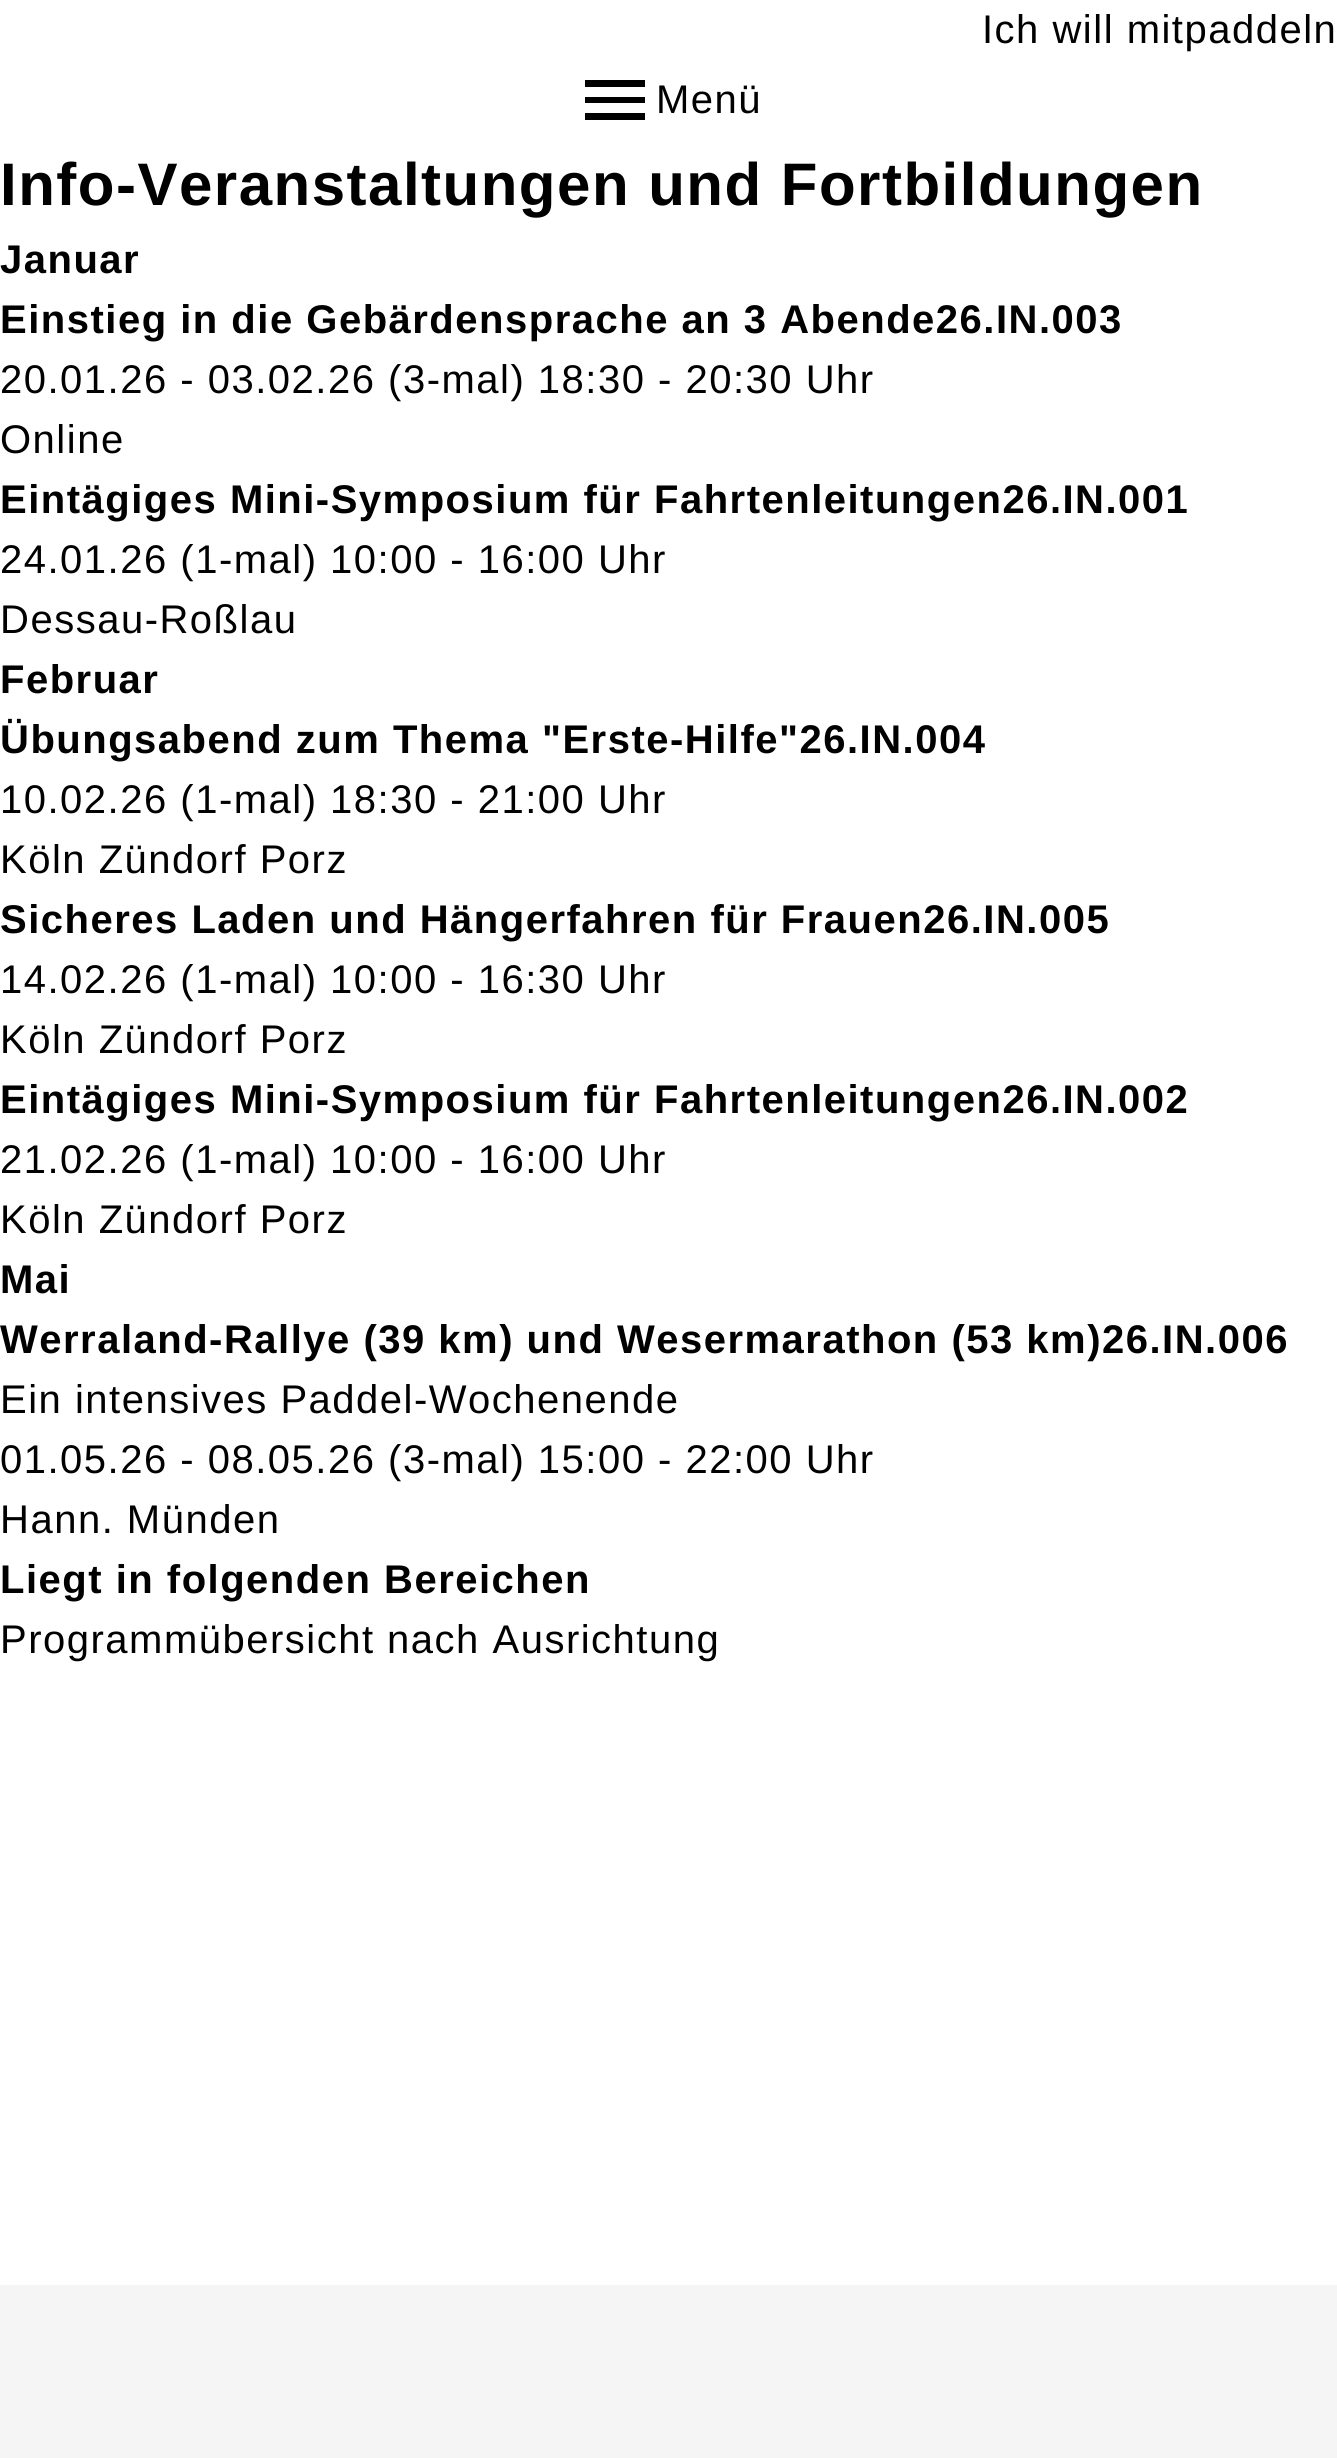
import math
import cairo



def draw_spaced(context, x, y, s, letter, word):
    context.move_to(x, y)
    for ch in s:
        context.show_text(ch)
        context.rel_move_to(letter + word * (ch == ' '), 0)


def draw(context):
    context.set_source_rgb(1, 1, 1)
    context.paint()
    context.set_source_rgb(0, 0, 0)
    context.new_path()
    context.move_to(585, 80)
    context.line_to(645, 80)
    context.line_to(645, 87)
    context.line_to(585, 87)
    context.line_to(585, 80)
    context.move_to(585, 97)
    context.line_to(645, 97)
    context.line_to(645, 103)
    context.line_to(585, 103)
    context.line_to(585, 97)
    context.move_to(585, 113)
    context.line_to(645, 113)
    context.line_to(645, 120)
    context.line_to(585, 120)
    context.close_path()
    context.fill()
    context.set_source_rgb(245 / 255, 245 / 255, 245 / 255)
    context.rectangle(0, 2285, 1337, 173)
    context.fill()
    context.select_font_face("Liberation Sans")
    context.set_font_size(40)
    context.set_source_rgb(0, 0, 0)
    draw_spaced(context, 982, 43, "Ich will mitpaddeln", 1.5, 0)
    draw_spaced(context, 656, 113, "Menü", 1.5, 0)
    context.select_font_face("Liberation Sans", cairo.FontSlant.NORMAL, cairo.FontWeight.BOLD)
    context.set_font_size(60)
    draw_spaced(context, 0, 205, "Info-Veranstaltungen und Fortbildungen", 1.5, 0)
    context.set_font_size(40)
    draw_spaced(context, 0, 273, "Januar", 1.5, 0)
    draw_spaced(context, 0, 333, "Einstieg in die Gebärdensprache an 3 Abende26.IN.003", 1.5, 0)
    context.select_font_face("Liberation Sans")
    draw_spaced(context, 0, 393, "20.01.26 - 03.02.26 (3-mal) 18:30 - 20:30 Uhr", 1.5, 0)
    draw_spaced(context, 0, 453, "Online", 1.5, 0)
    context.select_font_face("Liberation Sans", cairo.FontSlant.NORMAL, cairo.FontWeight.BOLD)
    draw_spaced(context, 0, 513, "Eintägiges Mini-Symposium für Fahrtenleitungen26.IN.001", 1.5, 0)
    context.select_font_face("Liberation Sans")
    draw_spaced(context, 0, 573, "24.01.26 (1-mal) 10:00 - 16:00 Uhr", 1.5, 0)
    draw_spaced(context, 0, 633, "Dessau-Roßlau", 1.5, 0)
    context.select_font_face("Liberation Sans", cairo.FontSlant.NORMAL, cairo.FontWeight.BOLD)
    draw_spaced(context, 0, 693, "Februar", 1.5, 0)
    draw_spaced(context, 0, 753, "Übungsabend zum Thema \"Erste-Hilfe\"26.IN.004", 1.5, 0)
    context.select_font_face("Liberation Sans")
    draw_spaced(context, 0, 813, "10.02.26 (1-mal) 18:30 - 21:00 Uhr", 1.5, 0)
    draw_spaced(context, 0, 873, "Köln Zündorf Porz", 1.5, 0)
    context.select_font_face("Liberation Sans", cairo.FontSlant.NORMAL, cairo.FontWeight.BOLD)
    draw_spaced(context, 0, 933, "Sicheres Laden und Hängerfahren für Frauen26.IN.005", 1.5, 0)
    context.select_font_face("Liberation Sans")
    draw_spaced(context, 0, 993, "14.02.26 (1-mal) 10:00 - 16:30 Uhr", 1.5, 0)
    draw_spaced(context, 0, 1053, "Köln Zündorf Porz", 1.5, 0)
    context.select_font_face("Liberation Sans", cairo.FontSlant.NORMAL, cairo.FontWeight.BOLD)
    draw_spaced(context, 0, 1113, "Eintägiges Mini-Symposium für Fahrtenleitungen26.IN.002", 1.5, 0)
    context.select_font_face("Liberation Sans")
    draw_spaced(context, 0, 1173, "21.02.26 (1-mal) 10:00 - 16:00 Uhr", 1.5, 0)
    draw_spaced(context, 0, 1233, "Köln Zündorf Porz", 1.5, 0)
    context.select_font_face("Liberation Sans", cairo.FontSlant.NORMAL, cairo.FontWeight.BOLD)
    draw_spaced(context, 0, 1293, "Mai", 1.5, 0)
    draw_spaced(context, 0, 1353, "Werraland-Rallye (39 km) und Wesermarathon (53 km)26.IN.006", 1.5, 0)
    context.select_font_face("Liberation Sans")
    draw_spaced(context, 0, 1413, "Ein intensives Paddel-Wochenende", 1.5, 0)
    draw_spaced(context, 0, 1473, "01.05.26 - 08.05.26 (3-mal) 15:00 - 22:00 Uhr", 1.5, 0)
    draw_spaced(context, 0, 1533, "Hann. Münden", 1.5, 0)
    context.select_font_face("Liberation Sans", cairo.FontSlant.NORMAL, cairo.FontWeight.BOLD)
    draw_spaced(context, 0, 1593, "Liegt in folgenden Bereichen", 1.5, 0)
    context.select_font_face("Liberation Sans")
    draw_spaced(context, 0, 1653, "Programmübersicht nach Ausrichtung", 1.5, 0)


surface = cairo.ImageSurface(cairo.Format.RGB24, 1337, 2458)
context = cairo.Context(surface)
options = cairo.FontOptions()
options.set_hint_metrics(cairo.HintMetrics.OFF)
options.set_hint_style(cairo.HintStyle.NONE)
context.set_font_options(options)
context.set_miter_limit(4)
draw(context)
surface.write_to_png("out.png")
